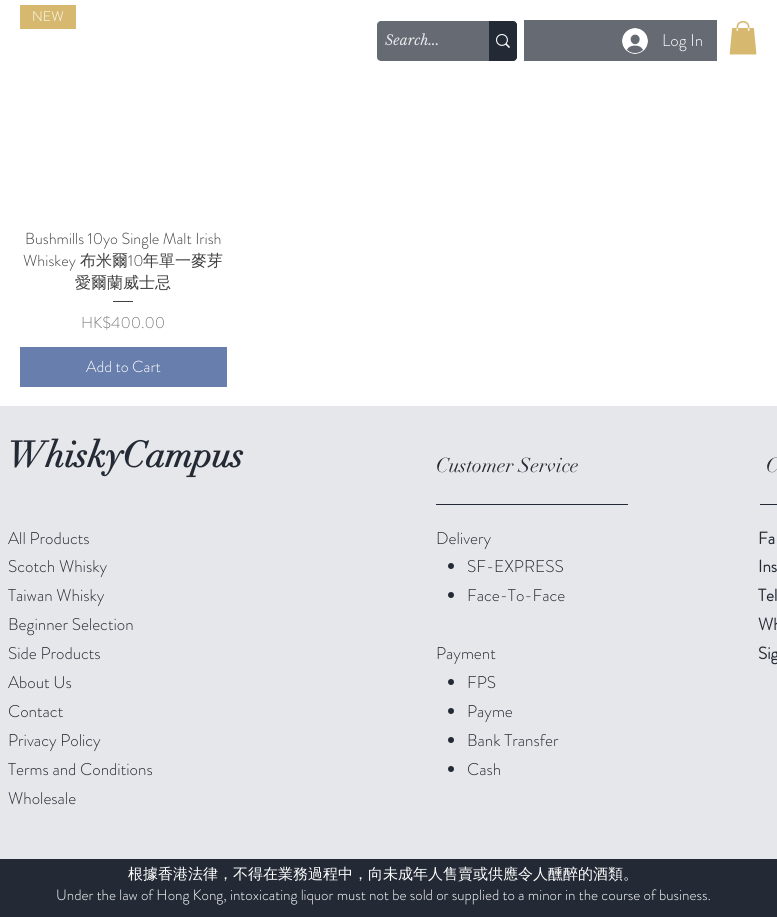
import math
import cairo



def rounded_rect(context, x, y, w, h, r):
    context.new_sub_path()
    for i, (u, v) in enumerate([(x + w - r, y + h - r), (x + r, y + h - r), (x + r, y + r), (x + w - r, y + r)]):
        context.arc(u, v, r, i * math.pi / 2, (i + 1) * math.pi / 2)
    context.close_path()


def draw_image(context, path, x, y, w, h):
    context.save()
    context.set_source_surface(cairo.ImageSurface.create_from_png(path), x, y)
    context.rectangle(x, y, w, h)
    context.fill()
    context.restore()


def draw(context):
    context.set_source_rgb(1, 1, 1)
    context.paint()
    context.set_source_rgb(214 / 255, 184 / 255, 110 / 255)
    context.rectangle(20, 5, 56, 24)
    context.fill()
    context.set_source_rgb(65 / 255, 65 / 255, 65 / 255)
    context.rectangle(113, 301, 20, 1)
    context.fill()
    context.set_source_rgb(104 / 255, 127 / 255, 173 / 255)
    context.rectangle(20, 347, 207, 40)
    context.fill()
    context.set_source_rgb(102 / 255, 106 / 255, 114 / 255)
    rounded_rect(context, 377, 21, 140, 40, 4)
    context.fill()
    context.set_source_rgb(36 / 255, 42 / 255, 53 / 255)
    context.new_path()
    context.move_to(489, 21)
    context.line_to(513, 21)
    context.curve_to(515, 21, 517, 23, 517, 25)
    context.line_to(517, 57)
    context.curve_to(517, 59, 515, 61, 513, 61)
    context.line_to(489, 61)
    context.close_path()
    context.fill()
    draw_image(context, "images/1.png", 496, 34, 14, 14)
    context.set_source_rgb(102 / 255, 106 / 255, 114 / 255)
    context.rectangle(524, 20, 193, 41)
    context.fill()
    draw_image(context, "images/2.png", 622, 28, 26, 26)
    draw_image(context, "images/3.png", 729, 21, 28, 34)
    context.set_source_rgb(230 / 255, 231 / 255, 234 / 255)
    context.rectangle(0, 406, 777, 453)
    context.fill()
    context.set_source_rgb(36 / 255, 42 / 255, 53 / 255)
    context.rectangle(436, 504, 192, 1)
    context.fill()
    context.rectangle(760, 504, 17, 1)
    context.fill()
    context.arc(451, 566, 3, 0, 2 * math.pi)
    context.fill()
    context.arc(451, 595, 3, 0, 2 * math.pi)
    context.fill()
    context.arc(451, 682, 3, 0, 2 * math.pi)
    context.fill()
    context.arc(451, 711, 3, 0, 2 * math.pi)
    context.fill()
    context.arc(451, 740, 3, 0, 2 * math.pi)
    context.fill()
    context.arc(451, 769, 3, 0, 2 * math.pi)
    context.fill()
    context.rectangle(0, 859, 777, 58)
    context.fill()
    context.select_font_face("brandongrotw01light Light")
    context.set_font_size(14)
    context.set_source_rgb(1, 1, 1)
    context.move_to(32, 21)
    context.show_text("NEW")
    context.set_font_size(16)
    context.set_source_rgb(65 / 255, 65 / 255, 65 / 255)
    context.move_to(25, 244)
    context.show_text("Bushmills 10yo Single Malt Irish")
    context.move_to(23, 266)
    context.show_text("Whiskey")
    context.select_font_face("WenQuanYi Zen Hei Medium")
    context.move_to(80, 266)
    context.show_text("布米爾")
    context.select_font_face("brandongrotw01light Light")
    context.move_to(128, 266)
    context.show_text("10")
    context.select_font_face("WenQuanYi Zen Hei Medium")
    context.move_to(143, 266)
    context.show_text("年單一麥芽")
    context.move_to(75, 288)
    context.show_text("愛爾蘭威士忌")
    context.select_font_face("brandongrotw01light Light")
    context.set_source_rgb(125 / 255, 124 / 255, 124 / 255)
    context.move_to(81, 328)
    context.show_text("HK$400.00")
    context.set_source_rgb(1, 1, 1)
    context.move_to(86, 372)
    context.show_text("Add to Cart")
    context.select_font_face("Libre Baskerville", cairo.FontSlant.ITALIC)
    context.set_font_size(14)
    context.set_source_rgb(230 / 255, 231 / 255, 234 / 255)
    context.move_to(385, 45)
    context.show_text("Search...")
    context.select_font_face("brandongrotw01light Light")
    context.set_font_size(17)
    context.set_source_rgb(1, 1, 1)
    context.move_to(662, 46)
    context.show_text("Log In")
    context.select_font_face("didot", cairo.FontSlant.NORMAL, cairo.FontWeight.BOLD)
    context.set_font_size(36)
    context.set_source_rgb(36 / 255, 42 / 255, 53 / 255)
    context.move_to(8, 467)
    context.show_text("WhiskyCampus")
    context.select_font_face("didot")
    context.set_font_size(20)
    context.move_to(436, 472)
    context.show_text("Customer Service")
    context.move_to(766, 472)
    context.show_text("C")
    context.select_font_face("brandongrotw01light Light")
    context.set_font_size(17)
    context.move_to(8, 544)
    context.show_text("All Products")
    context.move_to(8, 572)
    context.show_text("Scotch Whisky")
    context.move_to(8, 601)
    context.show_text("Taiwan Whisky")
    context.move_to(8, 630)
    context.show_text("Beginner Selection")
    context.move_to(8, 659)
    context.show_text("Side Products")
    context.move_to(8, 688)
    context.show_text("About Us")
    context.move_to(8, 717)
    context.show_text("Contact")
    context.move_to(8, 746)
    context.show_text("Privacy Policy")
    context.move_to(8, 775)
    context.show_text("Terms and Conditions")
    context.move_to(8, 804)
    context.show_text("Wholesale")
    context.move_to(436, 544)
    context.show_text("Delivery")
    context.move_to(467, 572)
    context.show_text("SF-EXPRESS")
    context.move_to(467, 601)
    context.show_text("Face-To-Face")
    context.move_to(436, 659)
    context.show_text("Payment")
    context.move_to(467, 688)
    context.show_text("FPS")
    context.move_to(467, 717)
    context.show_text("Payme")
    context.move_to(467, 746)
    context.show_text("Bank Transfer")
    context.move_to(467, 775)
    context.show_text("Cash")
    context.select_font_face("brandongrotw01light", cairo.FontSlant.NORMAL, cairo.FontWeight.BOLD)
    context.move_to(758, 544)
    context.show_text("Fa")
    context.move_to(758, 572)
    context.show_text("Ins")
    context.move_to(758, 601)
    context.show_text("Tel")
    context.move_to(758, 630)
    context.show_text("Wh")
    context.move_to(758, 659)
    context.show_text("Sig")
    context.select_font_face("WenQuanYi Zen Hei Medium")
    context.set_font_size(15)
    context.set_source_rgb(1, 1, 1)
    context.move_to(128, 879)
    context.show_text("根據香港法律，不得在業務過程中，向未成年人售賣或供應令人醺醉的酒類。")
    context.select_font_face("brandongrotw01light Light")
    context.move_to(56, 900)
    context.show_text("Under the law of Hong Kong, intoxicating liquor must not be sold or supplied to a minor in the course of business.")


surface = cairo.ImageSurface(cairo.Format.RGB24, 777, 917)
context = cairo.Context(surface)
options = cairo.FontOptions()
options.set_hint_metrics(cairo.HintMetrics.OFF)
options.set_hint_style(cairo.HintStyle.NONE)
context.set_font_options(options)
context.set_miter_limit(4)
draw(context)
surface.write_to_png("out.png")
